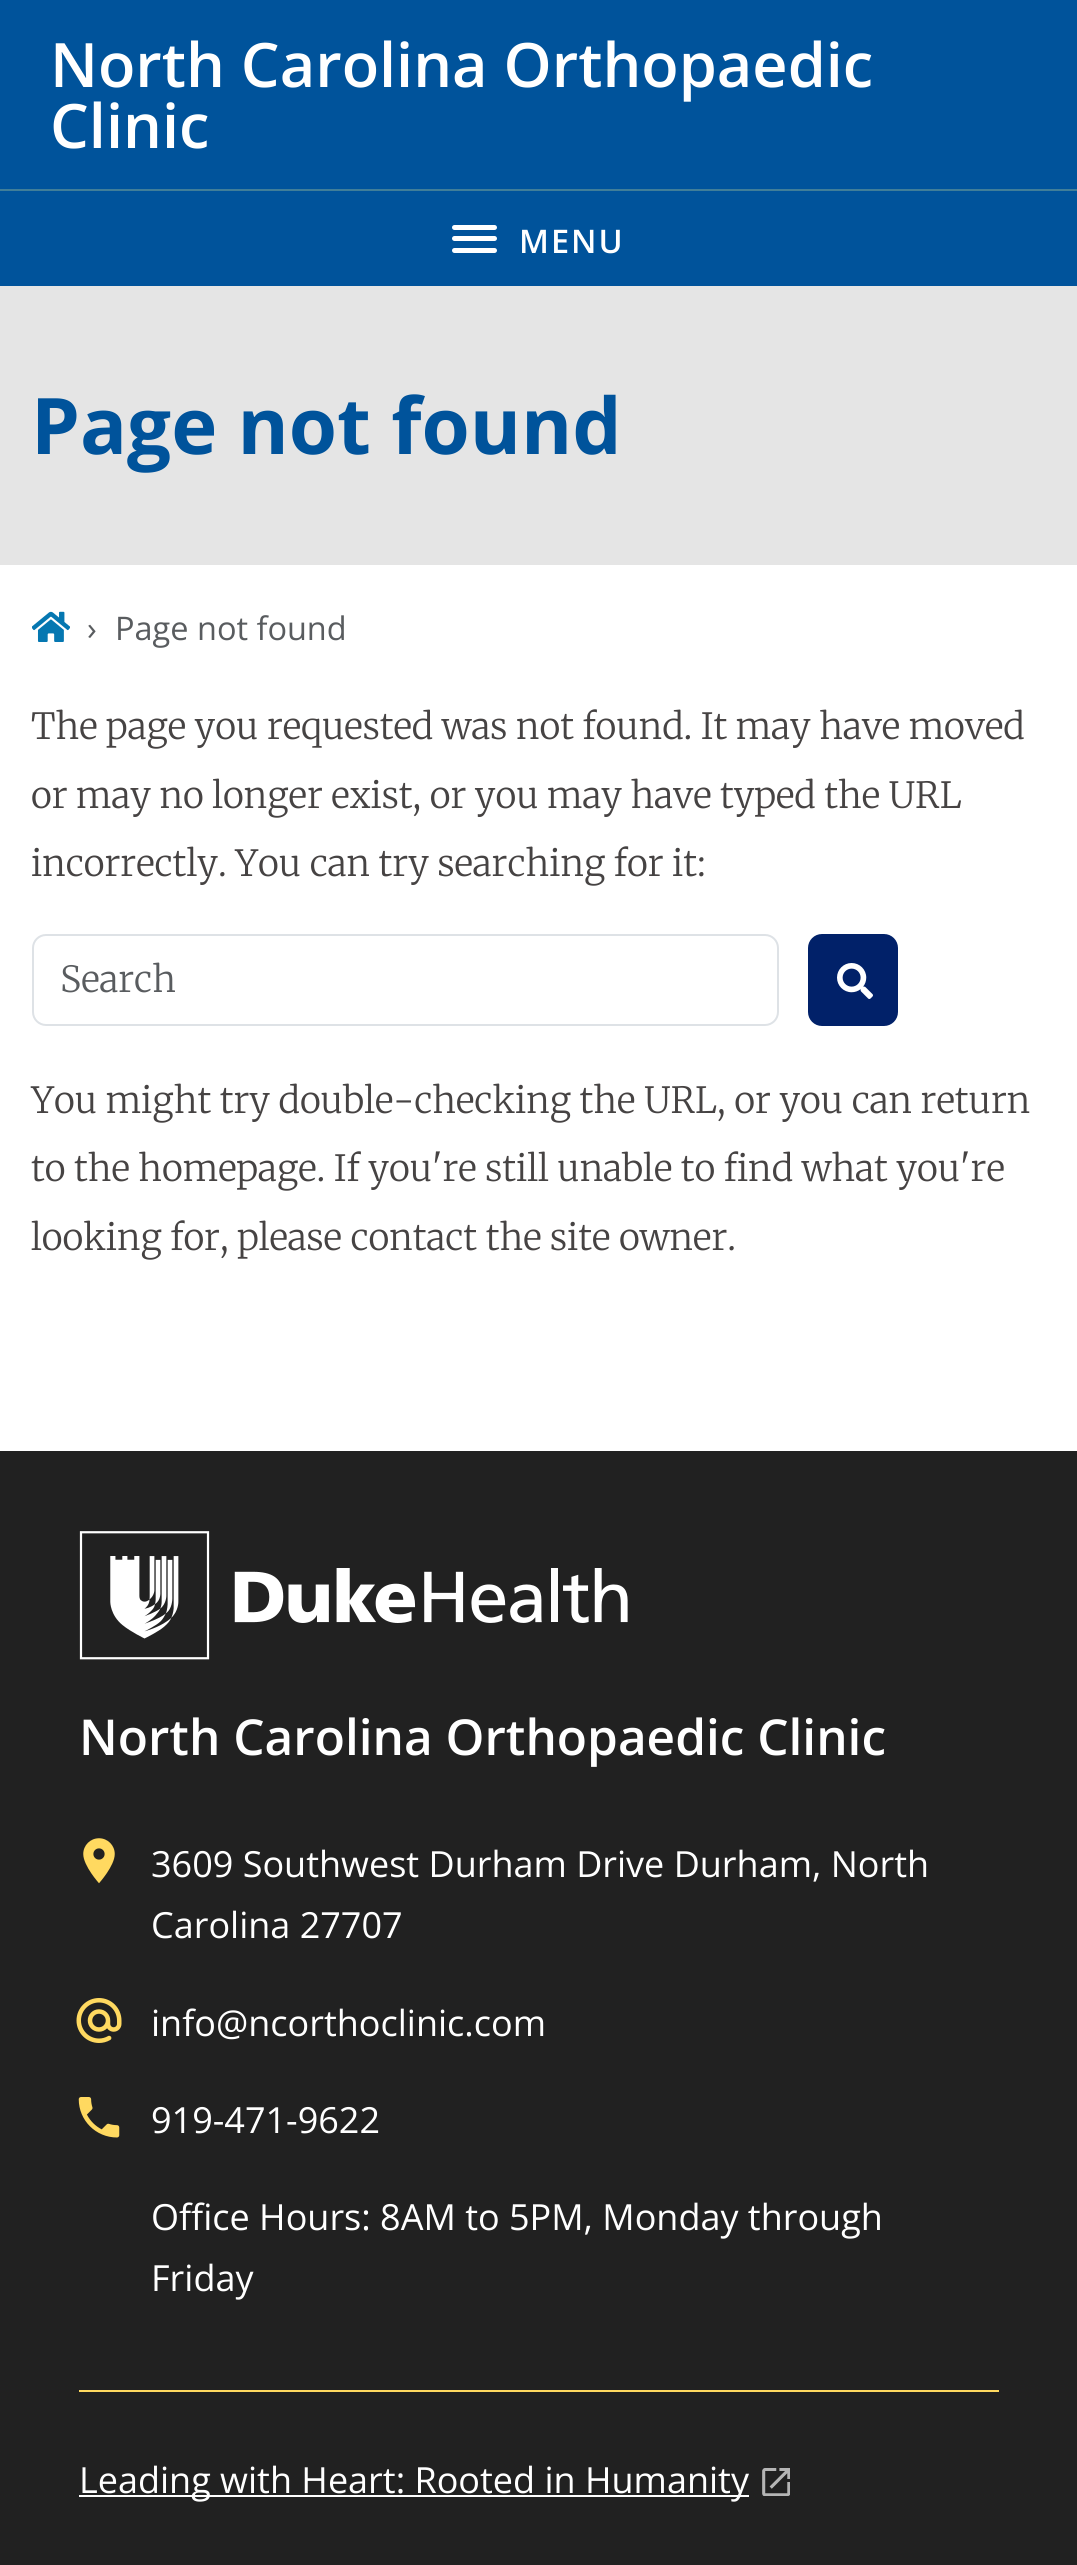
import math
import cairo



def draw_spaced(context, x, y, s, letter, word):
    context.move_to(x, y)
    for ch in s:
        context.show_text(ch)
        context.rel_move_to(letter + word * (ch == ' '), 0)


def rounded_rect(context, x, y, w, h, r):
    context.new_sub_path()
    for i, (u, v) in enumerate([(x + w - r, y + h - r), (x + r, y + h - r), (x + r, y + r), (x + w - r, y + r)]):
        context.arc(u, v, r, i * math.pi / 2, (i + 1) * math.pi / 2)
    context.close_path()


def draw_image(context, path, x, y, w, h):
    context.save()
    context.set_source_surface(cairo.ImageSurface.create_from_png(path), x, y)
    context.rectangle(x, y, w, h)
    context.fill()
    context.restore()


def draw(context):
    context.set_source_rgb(1, 1, 1)
    context.paint()
    context.set_source_rgb(0, 83 / 255, 155 / 255)
    context.rectangle(0, 0, 1077, 286)
    context.fill()
    context.set_source_rgb(64 / 255, 126 / 255, 153 / 255)
    context.rectangle(0, 189, 1077, 2)
    context.fill()
    context.set_source_rgb(1, 1, 1)
    rounded_rect(context, 452, 236, 45, 5, 2.5)
    context.fill()
    rounded_rect(context, 452, 225, 45, 5, 2.5)
    context.fill()
    rounded_rect(context, 452, 248, 45, 5, 2.5)
    context.fill()
    context.set_source_rgb(229 / 255, 229 / 255, 229 / 255)
    context.rectangle(0, 286, 1077, 279)
    context.fill()
    draw_image(context, "images/1.png", 32, 611, 38, 31)
    rounded_rect(context, 33, 935, 745, 90, 13)
    context.set_source_rgb(222 / 255, 226 / 255, 230 / 255)
    context.stroke()
    context.set_source_rgb(1 / 255, 33 / 255, 105 / 255)
    rounded_rect(context, 809, 935, 88, 90, 13)
    context.fill_preserve()
    context.stroke()
    draw_image(context, "images/2.png", 837, 963, 36, 36)
    context.set_source_rgb(33 / 255, 33 / 255, 33 / 255)
    context.rectangle(0, 1451, 1077, 1114)
    context.fill()
    draw_image(context, "images/3.png", 79, 1531, 549, 129)
    context.set_source_rgb(1, 217 / 255, 96 / 255)
    context.rectangle(79, 2390, 920, 2)
    context.fill()
    draw_image(context, "images/4.png", 83, 1838, 32, 46)
    draw_image(context, "images/5.png", 76, 1998, 46, 45)
    draw_image(context, "images/6.png", 78, 2097, 42, 41)
    context.set_source_rgb(1, 1, 1)
    context.rectangle(79, 2495, 670, 2)
    context.fill()
    draw_image(context, "images/7.png", 762, 2468, 28, 28)
    context.select_font_face("Open Sans SemiBold")
    context.set_font_size(61.25)
    context.move_to(50, 87)
    context.show_text("North Carolina Orthopaedic")
    context.move_to(50, 148)
    context.show_text("Clinic")
    context.set_font_size(32.5)
    draw_spaced(context, 519, 253, "MENU", 2, 0)
    context.select_font_face("Open Sans", cairo.FontSlant.NORMAL, cairo.FontWeight.BOLD)
    context.set_font_size(78)
    context.set_source_rgb(0, 83 / 255, 155 / 255)
    context.move_to(31, 454)
    context.show_text("Page not found")
    context.select_font_face("Open Sans")
    context.set_font_size(32.5)
    context.set_source_rgb(89 / 255, 92 / 255, 95 / 255)
    context.move_to(87, 640)
    context.show_text("›")
    context.move_to(115, 640)
    context.show_text("Page not found")
    context.select_font_face("Merriweather Light")
    context.set_font_size(36)
    context.set_source_rgb(70 / 255, 67 / 255, 67 / 255)
    context.move_to(31, 739)
    context.show_text("The page you requested was not found. It may have moved")
    context.move_to(31, 808)
    context.show_text("or may no longer exist, or you may have typed the URL")
    context.move_to(31, 876)
    context.show_text("incorrectly. You can try searching for it:")
    context.set_source_rgb(89 / 255, 92 / 255, 95 / 255)
    context.move_to(60, 992)
    context.show_text("Search")
    context.set_source_rgb(70 / 255, 67 / 255, 67 / 255)
    context.move_to(31, 1113)
    context.show_text("You might try double-checking the URL, or you can return")
    context.move_to(31, 1181)
    context.show_text("to the homepage. If you're still unable to find what you're")
    context.move_to(31, 1250)
    context.show_text("looking for, please contact the site owner.")
    context.select_font_face("Open Sans SemiBold")
    context.set_font_size(49.5)
    context.set_source_rgb(1, 1, 1)
    context.move_to(79, 1755)
    context.show_text("North Carolina Orthopaedic Clinic")
    context.select_font_face("Open Sans")
    context.set_font_size(36)
    context.move_to(151, 1877)
    context.show_text("3609 Southwest Durham Drive Durham, North")
    context.move_to(151, 1938)
    context.show_text("Carolina 27707")
    context.move_to(151, 2036)
    context.show_text("info@ncorthoclinic.com")
    context.move_to(151, 2133)
    context.show_text("919-471-9622")
    context.move_to(151, 2230)
    context.show_text("Office Hours: 8AM to 5PM, Monday through")
    context.move_to(151, 2291)
    context.show_text("Friday")
    context.move_to(79, 2493)
    context.show_text("Leading with Heart: Rooted in Humanity")


surface = cairo.ImageSurface(cairo.Format.RGB24, 1077, 2565)
context = cairo.Context(surface)
options = cairo.FontOptions()
options.set_hint_metrics(cairo.HintMetrics.OFF)
options.set_hint_style(cairo.HintStyle.NONE)
context.set_font_options(options)
context.set_miter_limit(4)
draw(context)
surface.write_to_png("out.png")
